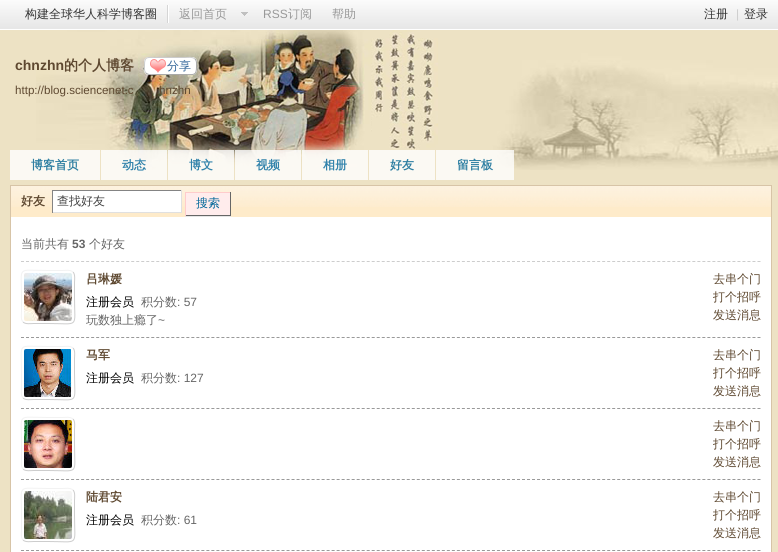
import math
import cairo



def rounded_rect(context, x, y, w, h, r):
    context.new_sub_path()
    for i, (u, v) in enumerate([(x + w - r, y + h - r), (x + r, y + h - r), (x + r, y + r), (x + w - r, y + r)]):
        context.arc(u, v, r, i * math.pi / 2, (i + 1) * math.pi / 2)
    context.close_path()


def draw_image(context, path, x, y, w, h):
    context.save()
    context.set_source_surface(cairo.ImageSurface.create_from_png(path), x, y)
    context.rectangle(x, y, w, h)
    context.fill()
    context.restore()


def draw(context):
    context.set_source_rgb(237 / 255, 226 / 255, 196 / 255)
    context.paint()
    draw_image(context, "images/1.png", 0, 0, 778, 30)
    context.set_source_rgb(1, 1, 1)
    context.rectangle(168, 5, 1, 18)
    context.fill()
    context.set_source_rgb(213 / 255, 213 / 255, 213 / 255)
    context.rectangle(167, 5, 1, 18)
    context.fill()
    draw_image(context, "images/2.png", 241, 12, 7, 4)
    draw_image(context, "images/3.png", 36, 30, 742, 140)
    context.set_source_rgb(1, 1, 1)
    rounded_rect(context, 144, 57, 53, 18, 5)
    context.fill()
    draw_image(context, "images/4.png", 150, 59, 16, 14)
    context.new_path()
    context.move_to(195, 59)
    context.curve_to(197, 61, 196.5, 64, 196.5, 67)
    context.curve_to(196.5, 76, 193.5, 74.5, 185, 74.5)
    context.line_to(156, 74.5)
    context.curve_to(154, 74.5, 148.5, 75.5, 146, 73)
    context.set_source_rgb(169 / 255, 169 / 255, 169 / 255)
    context.set_line_width(1)
    context.stroke()
    context.new_path()
    context.move_to(146, 73)
    context.curve_to(144, 71, 144.5, 68, 144.5, 65)
    context.curve_to(144.5, 56, 147.5, 57.5, 156, 57.5)
    context.line_to(185, 57.5)
    context.curve_to(187, 57.5, 192.5, 56.5, 195, 59)
    context.set_source_rgb(204 / 255, 204 / 255, 204 / 255)
    context.stroke()
    context.set_source_rgb(251 / 255, 249 / 255, 243 / 255)
    context.rectangle(10, 150, 90, 30)
    context.fill()
    context.set_source_rgba(1, 1, 1, 0.8)
    context.rectangle(101, 150, 66, 30)
    context.fill()
    context.rectangle(168, 150, 66, 30)
    context.fill()
    context.rectangle(235, 150, 66, 30)
    context.fill()
    context.rectangle(302, 150, 66, 30)
    context.fill()
    context.rectangle(369, 150, 66, 30)
    context.fill()
    context.rectangle(436, 150, 78, 30)
    context.fill()
    context.set_source_rgb(1, 1, 1)
    context.rectangle(11, 217, 760, 335)
    context.fill()
    context.rectangle(10.5, 185.5, 761, 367)
    context.set_source_rgb(215 / 255, 196 / 255, 167 / 255)
    context.stroke()
    context.set_source_rgb(254 / 255, 235 / 255, 202 / 255)
    context.rectangle(11, 207, 760, 10)
    context.fill()
    draw_image(context, "images/5.png", 11, 186, 760, 21)
    context.set_source_rgb(1, 1, 1)
    context.rectangle(53, 191, 128, 21)
    context.fill()
    context.set_source_rgb(132 / 255, 132 / 255, 132 / 255)
    context.rectangle(52, 190, 130, 1)
    context.fill()
    context.set_source_rgb(224 / 255, 224 / 255, 224 / 255)
    context.rectangle(181, 190, 1, 23)
    context.fill()
    context.rectangle(52, 212, 130, 1)
    context.fill()
    context.set_source_rgb(132 / 255, 132 / 255, 132 / 255)
    context.rectangle(52, 190, 1, 23)
    context.fill()
    context.set_source_rgb(229 / 255, 229 / 255, 229 / 255)
    context.rectangle(185, 216, 46, 1)
    context.fill()
    context.set_source_rgb(1, 236 / 255, 236 / 255)
    context.rectangle(186, 193, 44, 22)
    context.fill()
    context.set_source_rgb(1, 204 / 255, 204 / 255)
    context.rectangle(185, 192, 46, 1)
    context.fill()
    context.set_source_rgb(102 / 255, 102 / 255, 102 / 255)
    context.rectangle(230, 192, 1, 24)
    context.fill()
    context.rectangle(185, 215, 46, 1)
    context.fill()
    context.set_source_rgb(1, 204 / 255, 204 / 255)
    context.rectangle(185, 192, 1, 24)
    context.fill()
    context.new_path()
    context.move_to(21, 261.5)
    context.line_to(761, 261.5)
    context.set_source_rgb(205 / 255, 205 / 255, 205 / 255)
    context.set_dash([3, 2.01])
    context.stroke()
    context.new_path()
    context.move_to(21, 337.5)
    context.line_to(761, 337.5)
    context.set_source_rgb(153 / 255, 153 / 255, 153 / 255)
    context.stroke()
    context.new_path()
    context.move_to(73, 272)
    context.curve_to(75.5, 274.5, 74.5, 280, 74.5, 282.5)
    context.line_to(74.5, 297)
    context.curve_to(74.5, 329, 80, 323.5, 48, 323.5)
    context.line_to(33.5, 323.5)
    context.curve_to(31, 323.5, 25.5, 324.5, 23, 322)
    context.set_source_rgb(205 / 255, 205 / 255, 205 / 255)
    context.set_dash([])
    context.stroke()
    context.new_path()
    context.move_to(23, 322)
    context.curve_to(20.5, 319.5, 21.5, 314, 21.5, 311.5)
    context.line_to(21.5, 297)
    context.curve_to(21.5, 265, 16, 270.5, 48, 270.5)
    context.line_to(62.5, 270.5)
    context.curve_to(65, 270.5, 70.5, 269.5, 73, 272)
    context.set_source_rgb(242 / 255, 242 / 255, 242 / 255)
    context.stroke()
    draw_image(context, "images/6.png", 24, 273, 48, 48)
    context.new_path()
    context.move_to(21, 408.5)
    context.line_to(761, 408.5)
    context.set_source_rgb(153 / 255, 153 / 255, 153 / 255)
    context.set_dash([3, 2.01])
    context.stroke()
    context.new_path()
    context.move_to(73, 348)
    context.curve_to(75.5, 350.5, 74.5, 356, 74.5, 358.5)
    context.line_to(74.5, 373)
    context.curve_to(74.5, 405, 80, 399.5, 48, 399.5)
    context.line_to(33.5, 399.5)
    context.curve_to(31, 399.5, 25.5, 400.5, 23, 398)
    context.set_source_rgb(205 / 255, 205 / 255, 205 / 255)
    context.set_dash([])
    context.stroke()
    context.new_path()
    context.move_to(23, 398)
    context.curve_to(20.5, 395.5, 21.5, 390, 21.5, 387.5)
    context.line_to(21.5, 373)
    context.curve_to(21.5, 341, 16, 346.5, 48, 346.5)
    context.line_to(62.5, 346.5)
    context.curve_to(65, 346.5, 70.5, 345.5, 73, 348)
    context.set_source_rgb(242 / 255, 242 / 255, 242 / 255)
    context.stroke()
    draw_image(context, "images/7.png", 24, 349, 48, 48)
    context.new_path()
    context.move_to(21, 479.5)
    context.line_to(761, 479.5)
    context.set_source_rgb(153 / 255, 153 / 255, 153 / 255)
    context.set_dash([3, 2.01])
    context.stroke()
    context.new_path()
    context.move_to(73, 419)
    context.curve_to(75.5, 421.5, 74.5, 427, 74.5, 429.5)
    context.line_to(74.5, 444)
    context.curve_to(74.5, 476, 80, 470.5, 48, 470.5)
    context.line_to(33.5, 470.5)
    context.curve_to(31, 470.5, 25.5, 471.5, 23, 469)
    context.set_source_rgb(205 / 255, 205 / 255, 205 / 255)
    context.set_dash([])
    context.stroke()
    context.new_path()
    context.move_to(23, 469)
    context.curve_to(20.5, 466.5, 21.5, 461, 21.5, 458.5)
    context.line_to(21.5, 444)
    context.curve_to(21.5, 412, 16, 417.5, 48, 417.5)
    context.line_to(62.5, 417.5)
    context.curve_to(65, 417.5, 70.5, 416.5, 73, 419)
    context.set_source_rgb(242 / 255, 242 / 255, 242 / 255)
    context.stroke()
    draw_image(context, "images/8.png", 24, 420, 48, 48)
    context.new_path()
    context.move_to(21, 550.5)
    context.line_to(761, 550.5)
    context.set_source_rgb(153 / 255, 153 / 255, 153 / 255)
    context.set_dash([3, 2.01])
    context.stroke()
    context.new_path()
    context.move_to(73, 490)
    context.curve_to(75.5, 492.5, 74.5, 498, 74.5, 500.5)
    context.line_to(74.5, 515)
    context.curve_to(74.5, 547, 80, 541.5, 48, 541.5)
    context.line_to(33.5, 541.5)
    context.curve_to(31, 541.5, 25.5, 542.5, 23, 540)
    context.set_source_rgb(205 / 255, 205 / 255, 205 / 255)
    context.set_dash([])
    context.stroke()
    context.new_path()
    context.move_to(23, 540)
    context.curve_to(20.5, 537.5, 21.5, 532, 21.5, 529.5)
    context.line_to(21.5, 515)
    context.curve_to(21.5, 483, 16, 488.5, 48, 488.5)
    context.line_to(62.5, 488.5)
    context.curve_to(65, 488.5, 70.5, 487.5, 73, 490)
    context.set_source_rgb(242 / 255, 242 / 255, 242 / 255)
    context.stroke()
    draw_image(context, "images/9.png", 24, 491, 48, 48)
    context.select_font_face("WenQuanYi Zen Hei Medium")
    context.set_font_size(12)
    context.set_source_rgb(51 / 255, 51 / 255, 51 / 255)
    context.move_to(25, 18)
    context.show_text("构建全球华人科学博客圈")
    context.set_source_rgb(153 / 255, 153 / 255, 153 / 255)
    context.move_to(179, 18)
    context.show_text("返回首页")
    context.select_font_face("Liberation Sans")
    context.move_to(263, 18)
    context.show_text("RSS")
    context.select_font_face("WenQuanYi Zen Hei Medium")
    context.move_to(288, 18)
    context.show_text("订阅")
    context.move_to(332, 18)
    context.show_text("帮助")
    context.set_source_rgb(51 / 255, 51 / 255, 51 / 255)
    context.move_to(704, 18)
    context.show_text("注册")
    context.select_font_face("Liberation Sans")
    context.set_source_rgb(204 / 255, 204 / 255, 204 / 255)
    context.move_to(736, 18)
    context.show_text("|")
    context.select_font_face("WenQuanYi Zen Hei Medium")
    context.set_source_rgb(51 / 255, 51 / 255, 51 / 255)
    context.move_to(744, 18)
    context.show_text("登录")
    context.select_font_face("Liberation Sans", cairo.FontSlant.NORMAL, cairo.FontWeight.BOLD)
    context.set_font_size(14)
    context.set_source_rgb(94 / 255, 72 / 255, 48 / 255)
    context.move_to(15, 70)
    context.show_text("chnzhn")
    context.select_font_face("WenQuanYi Zen Hei", cairo.FontSlant.NORMAL, cairo.FontWeight.BOLD)
    context.move_to(64, 70)
    context.show_text("的个人博客")
    context.select_font_face("WenQuanYi Zen Hei Medium")
    context.set_font_size(12)
    context.set_source_rgb(51 / 255, 102 / 255, 153 / 255)
    context.move_to(167, 70)
    context.show_text("分享")
    context.select_font_face("Liberation Sans")
    context.set_font_size(11.6)
    context.set_source_rgb(94 / 255, 72 / 255, 48 / 255)
    context.move_to(15, 94)
    context.show_text("http://blog.sciencenet.c")
    context.move_to(159, 94)
    context.show_text("hnzhn")
    context.select_font_face("WenQuanYi Zen Hei", cairo.FontSlant.NORMAL, cairo.FontWeight.BOLD)
    context.set_font_size(12)
    context.set_source_rgb(47 / 255, 127 / 255, 162 / 255)
    context.move_to(31, 169)
    context.show_text("博客首页")
    context.set_source_rgb(50 / 255, 131 / 255, 171 / 255)
    context.move_to(122, 169)
    context.show_text("动态")
    context.move_to(189, 169)
    context.show_text("博文")
    context.move_to(256, 169)
    context.show_text("视频")
    context.move_to(323, 169)
    context.show_text("相册")
    context.set_source_rgb(47 / 255, 127 / 255, 162 / 255)
    context.move_to(390, 169)
    context.show_text("好友")
    context.move_to(457, 169)
    context.show_text("留言板")
    context.set_source_rgb(94 / 255, 72 / 255, 48 / 255)
    context.move_to(21, 205)
    context.show_text("好友")
    context.select_font_face("WenQuanYi Zen Hei Medium")
    context.set_source_rgb(68 / 255, 68 / 255, 68 / 255)
    context.move_to(57, 205)
    context.show_text("查找好友")
    context.set_source_rgb(0, 102 / 255, 153 / 255)
    context.move_to(196, 207)
    context.show_text("搜索")
    context.set_source_rgb(102 / 255, 102 / 255, 102 / 255)
    context.move_to(21, 248)
    context.show_text("当前共有")
    context.select_font_face("Liberation Sans", cairo.FontSlant.NORMAL, cairo.FontWeight.BOLD)
    context.move_to(72, 248)
    context.show_text("53")
    context.select_font_face("WenQuanYi Zen Hei Medium")
    context.move_to(89, 248)
    context.show_text("个好友")
    context.select_font_face("WenQuanYi Zen Hei", cairo.FontSlant.NORMAL, cairo.FontWeight.BOLD)
    context.set_source_rgb(94 / 255, 72 / 255, 48 / 255)
    context.move_to(86, 283)
    context.show_text("吕琳媛")
    context.select_font_face("WenQuanYi Zen Hei Medium")
    context.move_to(713, 283)
    context.show_text("去串个门")
    context.move_to(713, 301)
    context.show_text("打个招呼")
    context.move_to(713, 319)
    context.show_text("发送消息")
    context.set_source_rgb(0, 0, 0)
    context.move_to(86, 306)
    context.show_text("注册会员")
    context.set_source_rgb(102 / 255, 102 / 255, 102 / 255)
    context.move_to(141, 306)
    context.show_text("积分数")
    context.select_font_face("Liberation Sans")
    context.move_to(177, 306)
    context.show_text(": 57")
    context.select_font_face("WenQuanYi Zen Hei Medium")
    context.move_to(86, 324)
    context.show_text("玩数独上瘾了")
    context.select_font_face("Liberation Sans")
    context.move_to(158, 324)
    context.show_text("~")
    context.select_font_face("WenQuanYi Zen Hei", cairo.FontSlant.NORMAL, cairo.FontWeight.BOLD)
    context.set_source_rgb(94 / 255, 72 / 255, 48 / 255)
    context.move_to(86, 359)
    context.show_text("马军")
    context.select_font_face("WenQuanYi Zen Hei Medium")
    context.move_to(713, 359)
    context.show_text("去串个门")
    context.move_to(713, 377)
    context.show_text("打个招呼")
    context.move_to(713, 395)
    context.show_text("发送消息")
    context.set_source_rgb(0, 0, 0)
    context.move_to(86, 382)
    context.show_text("注册会员")
    context.set_source_rgb(102 / 255, 102 / 255, 102 / 255)
    context.move_to(141, 382)
    context.show_text("积分数")
    context.select_font_face("Liberation Sans")
    context.move_to(177, 382)
    context.show_text(": 127")
    context.select_font_face("WenQuanYi Zen Hei Medium")
    context.set_source_rgb(94 / 255, 72 / 255, 48 / 255)
    context.move_to(713, 430)
    context.show_text("去串个门")
    context.move_to(713, 448)
    context.show_text("打个招呼")
    context.move_to(713, 466)
    context.show_text("发送消息")
    context.select_font_face("WenQuanYi Zen Hei", cairo.FontSlant.NORMAL, cairo.FontWeight.BOLD)
    context.move_to(86, 501)
    context.show_text("陆君安")
    context.select_font_face("WenQuanYi Zen Hei Medium")
    context.move_to(713, 501)
    context.show_text("去串个门")
    context.move_to(713, 519)
    context.show_text("打个招呼")
    context.move_to(713, 537)
    context.show_text("发送消息")
    context.set_source_rgb(0, 0, 0)
    context.move_to(86, 524)
    context.show_text("注册会员")
    context.set_source_rgb(102 / 255, 102 / 255, 102 / 255)
    context.move_to(141, 524)
    context.show_text("积分数")
    context.select_font_face("Liberation Sans")
    context.move_to(177, 524)
    context.show_text(": 61")


surface = cairo.ImageSurface(cairo.Format.RGB24, 778, 552)
context = cairo.Context(surface)
options = cairo.FontOptions()
options.set_hint_metrics(cairo.HintMetrics.OFF)
options.set_hint_style(cairo.HintStyle.NONE)
context.set_font_options(options)
context.set_miter_limit(4)
draw(context)
surface.write_to_png("out.png")
